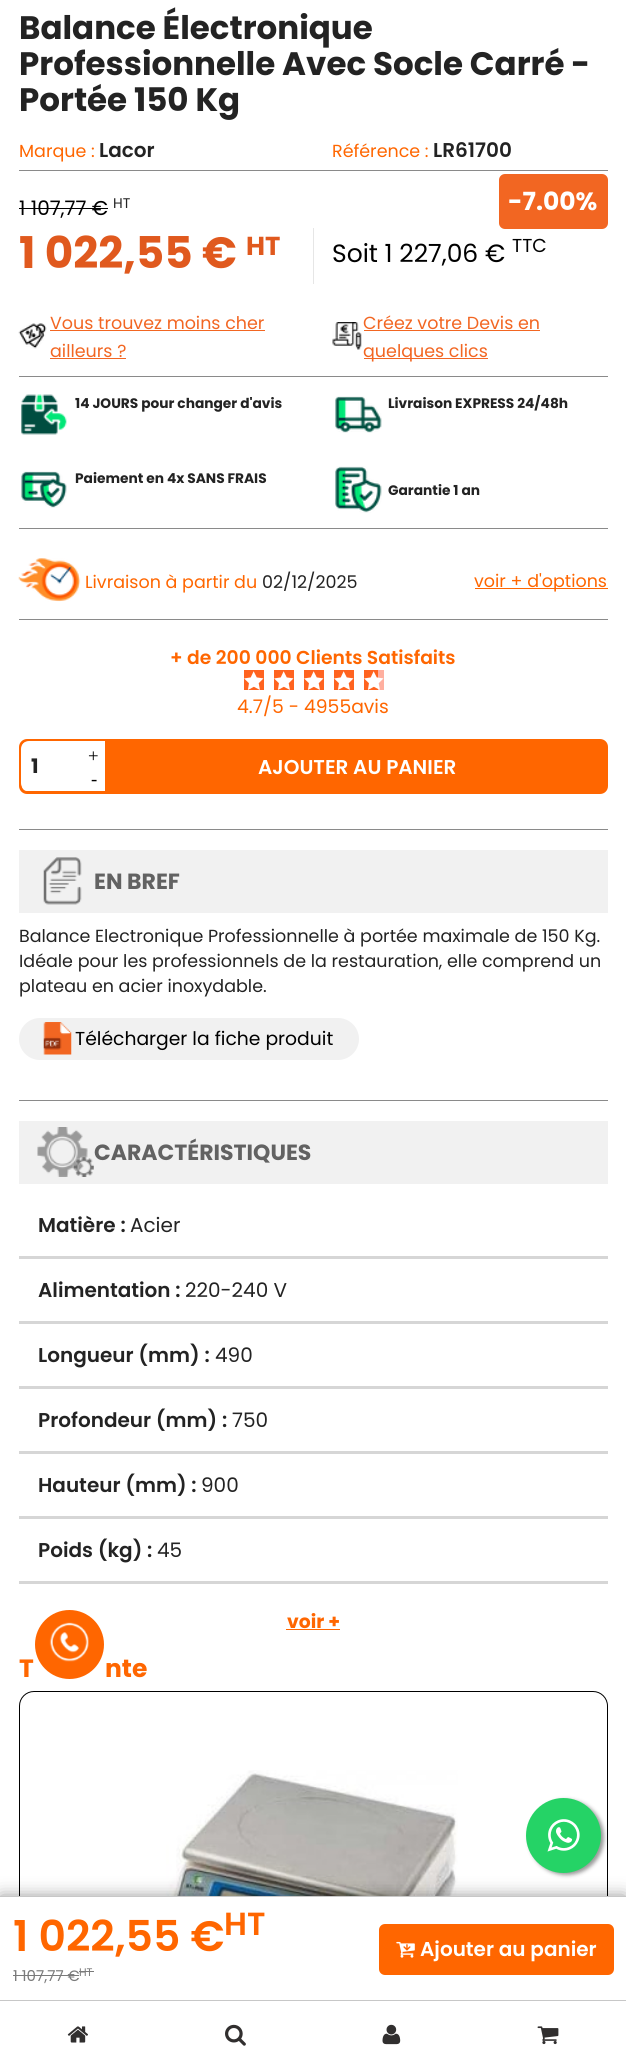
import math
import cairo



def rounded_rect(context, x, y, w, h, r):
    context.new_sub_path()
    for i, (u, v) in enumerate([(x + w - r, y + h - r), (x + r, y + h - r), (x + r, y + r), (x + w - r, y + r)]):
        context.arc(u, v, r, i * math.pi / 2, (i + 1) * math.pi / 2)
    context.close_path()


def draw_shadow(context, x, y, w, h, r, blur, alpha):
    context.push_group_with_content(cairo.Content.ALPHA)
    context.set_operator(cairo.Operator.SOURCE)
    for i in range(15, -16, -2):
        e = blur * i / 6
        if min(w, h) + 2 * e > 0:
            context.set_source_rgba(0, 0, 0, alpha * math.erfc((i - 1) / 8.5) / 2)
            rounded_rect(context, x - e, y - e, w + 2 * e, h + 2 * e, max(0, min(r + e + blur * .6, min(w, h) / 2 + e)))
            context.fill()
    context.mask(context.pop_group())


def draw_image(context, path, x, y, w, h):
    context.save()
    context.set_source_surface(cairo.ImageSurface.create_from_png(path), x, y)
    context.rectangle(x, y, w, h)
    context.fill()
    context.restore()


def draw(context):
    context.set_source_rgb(1, 1, 1)
    context.paint()
    context.set_source_rgb(1, 175 / 255, 159 / 255)
    context.rectangle(378, 670, 6, 20)
    context.fill()
    context.set_source_rgb(138 / 255, 138 / 255, 138 / 255)
    context.rectangle(19, 170, 589, 1)
    context.fill()
    context.set_source_rgb(242 / 255, 102 / 255, 34 / 255)
    rounded_rect(context, 499, 174, 109, 55, 6)
    context.fill()
    context.set_source_rgb(230 / 255, 230 / 255, 230 / 255)
    context.rectangle(313, 228, 1, 56)
    context.fill()
    context.set_source_rgb(0, 0, 0)
    context.rectangle(19, 208, 89, 1)
    context.fill()
    draw_image(context, "images/1.png", 18, 323, 29, 26)
    context.set_source_rgb(242 / 255, 102 / 255, 34 / 255)
    context.rectangle(50, 330, 215, 1)
    context.fill()
    context.rectangle(50, 358, 76, 1)
    context.fill()
    draw_image(context, "images/2.png", 332, 322, 30, 28)
    context.rectangle(364, 330, 176, 1)
    context.fill()
    context.rectangle(364, 358, 124, 1)
    context.fill()
    context.set_source_rgb(138 / 255, 138 / 255, 138 / 255)
    context.rectangle(19, 376, 589, 1)
    context.fill()
    draw_image(context, "images/3.png", 21, 394, 46, 41)
    draw_image(context, "images/4.png", 335, 396, 47, 37)
    draw_image(context, "images/5.png", 21, 471, 46, 37)
    draw_image(context, "images/6.png", 335, 466, 47, 47)
    context.rectangle(19, 528, 589, 1)
    context.fill()
    draw_image(context, "images/7.png", 18, 558, 63, 44)
    context.set_source_rgb(1, 102 / 255, 0)
    context.rectangle(475, 588, 133, 1)
    context.fill()
    context.set_source_rgb(138 / 255, 138 / 255, 138 / 255)
    context.rectangle(19, 619, 589, 1)
    context.fill()
    context.set_source_rgb(1, 99 / 255, 31 / 255)
    context.rectangle(244, 670, 20, 20)
    context.fill()
    draw_image(context, "images/8.png", 244, 671, 20, 19)
    context.rectangle(274, 670, 20, 20)
    context.fill()
    draw_image(context, "images/8.png", 274, 671, 20, 19)
    context.rectangle(304, 670, 20, 20)
    context.fill()
    draw_image(context, "images/8.png", 304, 671, 20, 19)
    context.rectangle(334, 670, 20, 20)
    context.fill()
    draw_image(context, "images/8.png", 334, 671, 20, 19)
    context.rectangle(364, 670, 14, 20)
    context.fill()
    draw_image(context, "images/9.png", 364, 671, 20, 19)
    context.new_path()
    context.move_to(27, 740.5)
    context.line_to(106.5, 740.5)
    context.line_to(106.5, 792.5)
    context.line_to(27, 792.5)
    context.curve_to(23.5, 792.5, 20.5, 789.5, 20.5, 786)
    context.line_to(20.5, 747)
    context.curve_to(20.5, 743.5, 23.5, 740.5, 27, 740.5)
    context.close_path()
    context.set_source_rgb(1, 102 / 255, 0)
    context.set_line_width(3)
    context.stroke()
    context.set_source_rgb(1, 1, 1)
    context.new_path()
    context.move_to(29, 741)
    context.line_to(81, 741)
    context.line_to(81, 791)
    context.line_to(29, 791)
    context.curve_to(24.5, 791, 21, 787.5, 21, 783)
    context.line_to(21, 749)
    context.curve_to(21, 744.5, 24.5, 741, 29, 741)
    context.close_path()
    context.fill()
    context.rectangle(81, 741, 24, 1)
    context.fill()
    context.set_source_rgb(1, 102 / 255, 0)
    context.new_path()
    context.move_to(108, 739)
    context.line_to(600, 739)
    context.curve_to(604.5, 739, 608, 742.5, 608, 747)
    context.line_to(608, 786)
    context.curve_to(608, 790.5, 604.5, 794, 600, 794)
    context.line_to(108, 794)
    context.close_path()
    context.fill()
    context.set_source_rgb(138 / 255, 138 / 255, 138 / 255)
    context.rectangle(19, 829, 589, 1)
    context.fill()
    context.set_source_rgb(241 / 255, 241 / 255, 241 / 255)
    context.rectangle(19, 850, 589, 63)
    context.fill()
    draw_image(context, "images/10.png", 43, 857, 39, 48)
    rounded_rect(context, 19, 1018, 340, 42, 21)
    context.fill()
    draw_image(context, "images/11.png", 43, 1022, 29, 33)
    context.set_source_rgb(138 / 255, 138 / 255, 138 / 255)
    context.rectangle(19, 1100, 589, 1)
    context.fill()
    context.set_source_rgb(241 / 255, 241 / 255, 241 / 255)
    context.rectangle(19, 1121, 589, 63)
    context.fill()
    draw_image(context, "images/12.png", 37, 1127, 57, 50)
    context.set_source_rgb(214 / 255, 214 / 255, 214 / 255)
    context.rectangle(19, 1256, 589, 3)
    context.fill()
    context.rectangle(19, 1321, 589, 3)
    context.fill()
    context.rectangle(19, 1386, 589, 3)
    context.fill()
    context.rectangle(19, 1451, 589, 3)
    context.fill()
    context.rectangle(19, 1516, 589, 3)
    context.fill()
    context.rectangle(19, 1581, 589, 3)
    context.fill()
    context.set_source_rgb(1, 102 / 255, 0)
    context.rectangle(286, 1629, 54, 1)
    context.fill()
    rounded_rect(context, 19.5, 1691.5, 588, 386, 14.5)
    context.set_source_rgb(0, 0, 0)
    context.set_line_width(1)
    context.stroke()
    draw_image(context, "images/13.png", 165, 1770, 293, 126)
    context.set_source_rgb(0, 0, 0)
    draw_shadow(context, 1, 1898, 624, 102, 0, 9, 0.49)
    context.set_source_rgb(1, 1, 1)
    context.rectangle(0, 1897, 626, 103)
    context.fill()
    context.set_source_rgb(199 / 255, 199 / 255, 199 / 255)
    context.rectangle(0, 1896, 626, 1)
    context.fill()
    context.set_source_rgb(122 / 255, 122 / 255, 122 / 255)
    context.rectangle(13, 1975, 66, 1)
    context.fill()
    context.rectangle(79, 1971, 15, 1)
    context.fill()
    context.set_source_rgb(1, 102 / 255, 0)
    rounded_rect(context, 379, 1924, 235, 51, 6)
    context.fill()
    draw_image(context, "images/14.png", 396, 1941, 19, 17)
    context.arc(69.5, 1644.5, 34.5, 0, 2 * math.pi)
    context.fill()
    draw_image(context, "images/15.png", 49, 1622, 40, 40)
    context.set_source_rgb(153 / 255, 153 / 255, 153 / 255)
    draw_shadow(context, 529, 1800, 75, 75, 37.5, 2, 1)
    context.set_source_rgb(37 / 255, 211 / 255, 102 / 255)
    context.arc(563.5, 1835.5, 37.5, 0, 2 * math.pi)
    context.fill()
    draw_image(context, "images/16.png", 547, 1819, 33, 33)
    context.set_source_rgb(1, 1, 1)
    context.rectangle(0, 2001, 626, 61)
    context.fill()
    context.set_source_rgb(199 / 255, 199 / 255, 199 / 255)
    context.rectangle(0, 2000, 626, 1)
    context.fill()
    draw_image(context, "images/17.png", 67, 2026, 21, 17)
    draw_image(context, "images/18.png", 225, 2024, 21, 22)
    draw_image(context, "images/19.png", 382, 2024, 19, 21)
    draw_image(context, "images/20.png", 537, 2026, 22, 19)
    context.select_font_face("Poppins", cairo.FontSlant.NORMAL, cairo.FontWeight.BOLD)
    context.set_font_size(32.5)
    context.set_source_rgb(35 / 255, 35 / 255, 35 / 255)
    context.move_to(19, 39)
    context.show_text("Balance Électronique")
    context.move_to(19, 75)
    context.show_text("Professionnelle Avec Socle Carré -")
    context.move_to(19, 111)
    context.show_text("Portée 150 Kg")
    context.select_font_face("Poppins")
    context.set_font_size(17.5)
    context.set_source_rgb(1, 102 / 255, 0)
    context.move_to(19, 157)
    context.show_text("Marque :")
    context.select_font_face("Poppins SemiBold")
    context.set_font_size(20)
    context.set_source_rgb(35 / 255, 35 / 255, 35 / 255)
    context.move_to(99, 157)
    context.show_text("Lacor")
    context.select_font_face("Poppins")
    context.set_font_size(17.5)
    context.set_source_rgb(1, 102 / 255, 0)
    context.move_to(332, 157)
    context.show_text("Référence :")
    context.select_font_face("Poppins SemiBold")
    context.set_font_size(20)
    context.set_source_rgb(35 / 255, 35 / 255, 35 / 255)
    context.move_to(433, 157)
    context.show_text("LR61700")
    context.select_font_face("Poppins", cairo.FontSlant.NORMAL, cairo.FontWeight.BOLD)
    context.set_font_size(25)
    context.set_source_rgb(1, 1, 1)
    context.move_to(508, 210)
    context.show_text("-7.00%")
    context.set_font_size(43.75)
    context.set_source_rgb(224 / 255, 89 / 255, 30 / 255)
    context.move_to(19, 268)
    context.show_text("1 022,55 €")
    context.set_font_size(26)
    context.move_to(246, 255)
    context.show_text("HT")
    context.select_font_face("Poppins")
    context.set_font_size(25)
    context.set_source_rgb(0, 0, 0)
    context.move_to(332, 262)
    context.show_text("Soit 1 227,06 €")
    context.set_font_size(18.75)
    context.move_to(512, 252)
    context.show_text("TTC")
    context.set_font_size(20)
    context.move_to(19, 215)
    context.show_text("1 107,77 €")
    context.set_font_size(14)
    context.set_source_rgb(35 / 255, 35 / 255, 35 / 255)
    context.move_to(113, 208)
    context.show_text("HT")
    context.set_font_size(17.5)
    context.set_source_rgb(242 / 255, 102 / 255, 34 / 255)
    context.move_to(50, 329)
    context.show_text("Vous trouvez moins cher")
    context.move_to(50, 357)
    context.show_text("ailleurs ?")
    context.move_to(363, 329)
    context.show_text("Créez votre Devis en")
    context.move_to(363, 357)
    context.show_text("quelques clics")
    context.select_font_face("Poppins", cairo.FontSlant.NORMAL, cairo.FontWeight.BOLD)
    context.set_font_size(13.75)
    context.set_source_rgb(35 / 255, 35 / 255, 35 / 255)
    context.move_to(75, 408)
    context.show_text("14 JOURS pour changer d'avis")
    context.move_to(388, 408)
    context.show_text("Livraison EXPRESS 24/48h")
    context.move_to(75, 483)
    context.show_text("Paiement en 4x SANS FRAIS")
    context.move_to(388, 495)
    context.show_text("Garantie 1 an")
    context.select_font_face("Poppins")
    context.set_font_size(17.5)
    context.set_source_rgb(1, 102 / 255, 0)
    context.move_to(85, 588)
    context.show_text("Livraison à partir du")
    context.set_source_rgb(35 / 255, 35 / 255, 35 / 255)
    context.move_to(262, 588)
    context.show_text("02/12/2025")
    context.set_source_rgb(1, 102 / 255, 0)
    context.move_to(474, 587)
    context.show_text("voir + d'options")
    context.select_font_face("Poppins SemiBold")
    context.set_font_size(18.75)
    context.move_to(170, 664)
    context.show_text("+ de 200 000 Clients Satisfaits")
    context.select_font_face("Poppins")
    context.move_to(237, 713)
    context.show_text("4.7/5 - 4955avis")
    context.select_font_face("Poppins", cairo.FontSlant.NORMAL, cairo.FontWeight.BOLD)
    context.set_font_size(20)
    context.set_source_rgb(35 / 255, 35 / 255, 35 / 255)
    context.move_to(31, 773)
    context.show_text("1")
    context.select_font_face("Liberation Serif")
    context.set_font_size(18.75)
    context.set_source_rgb(0, 0, 0)
    context.move_to(88, 762)
    context.show_text("+")
    context.move_to(91, 785)
    context.show_text("-")
    context.select_font_face("Poppins SemiBold")
    context.set_font_size(20)
    context.set_source_rgb(1, 1, 1)
    context.move_to(258, 774)
    context.show_text("AJOUTER AU PANIER")
    context.select_font_face("Poppins", cairo.FontSlant.NORMAL, cairo.FontWeight.BOLD)
    context.set_font_size(22)
    context.set_source_rgb(98 / 255, 98 / 255, 98 / 255)
    context.move_to(94, 889)
    context.show_text("EN BREF")
    context.select_font_face("Poppins")
    context.set_font_size(17.5)
    context.set_source_rgb(35 / 255, 35 / 255, 35 / 255)
    context.move_to(19, 942)
    context.show_text("Balance Electronique Professionnelle à portée maximale de 150 Kg.")
    context.move_to(19, 967)
    context.show_text("Idéale pour les professionnels de la restauration, elle comprend un")
    context.move_to(19, 992)
    context.show_text("plateau en acier inoxydable.")
    context.set_font_size(18.75)
    context.set_source_rgb(0, 0, 0)
    context.move_to(75, 1045)
    context.show_text("Télécharger la fiche produit")
    context.select_font_face("Poppins", cairo.FontSlant.NORMAL, cairo.FontWeight.BOLD)
    context.set_font_size(22)
    context.set_source_rgb(98 / 255, 98 / 255, 98 / 255)
    context.move_to(94, 1160)
    context.show_text("CARACTÉRISTIQUES")
    context.select_font_face("Poppins SemiBold")
    context.set_font_size(20)
    context.set_source_rgb(35 / 255, 35 / 255, 35 / 255)
    context.move_to(38, 1232)
    context.show_text("Matière :")
    context.select_font_face("Poppins")
    context.move_to(130, 1232)
    context.show_text("Acier")
    context.select_font_face("Poppins SemiBold")
    context.move_to(38, 1297)
    context.show_text("Alimentation :")
    context.select_font_face("Poppins")
    context.move_to(185, 1297)
    context.show_text("220-240 V")
    context.select_font_face("Poppins SemiBold")
    context.move_to(38, 1362)
    context.show_text("Longueur (mm) :")
    context.select_font_face("Poppins")
    context.move_to(215, 1362)
    context.show_text("490")
    context.select_font_face("Poppins SemiBold")
    context.move_to(38, 1427)
    context.show_text("Profondeur (mm) :")
    context.select_font_face("Poppins")
    context.move_to(232, 1427)
    context.show_text("750")
    context.select_font_face("Poppins SemiBold")
    context.move_to(38, 1492)
    context.show_text("Hauteur (mm) :")
    context.select_font_face("Poppins")
    context.move_to(201, 1492)
    context.show_text("900")
    context.select_font_face("Poppins SemiBold")
    context.move_to(38, 1557)
    context.show_text("Poids (kg) :")
    context.select_font_face("Poppins")
    context.move_to(157, 1557)
    context.show_text("45")
    context.select_font_face("Poppins", cairo.FontSlant.NORMAL, cairo.FontWeight.BOLD)
    context.set_font_size(18.75)
    context.set_source_rgb(1, 102 / 255, 0)
    context.move_to(287, 1628)
    context.show_text("voir +")
    context.set_font_size(25)
    context.move_to(19, 1677)
    context.show_text("T")
    context.move_to(105, 1677)
    context.show_text("nte")
    context.select_font_face("Poppins SemiBold")
    context.set_font_size(42.5)
    context.move_to(13, 1951)
    context.show_text("1 022,55 €")
    context.set_font_size(32)
    context.move_to(224, 1935)
    context.show_text("HT")
    context.select_font_face("Poppins")
    context.set_font_size(15)
    context.set_source_rgb(122 / 255, 122 / 255, 122 / 255)
    context.move_to(13, 1981)
    context.show_text("1 107,77 €")
    context.set_font_size(11)
    context.move_to(79, 1976)
    context.show_text("HT")
    context.select_font_face("Poppins SemiBold")
    context.set_font_size(20)
    context.set_source_rgb(1, 1, 1)
    context.move_to(420, 1956)
    context.show_text("Ajouter au panier")


surface = cairo.ImageSurface(cairo.Format.RGB24, 626, 2062)
context = cairo.Context(surface)
options = cairo.FontOptions()
options.set_hint_metrics(cairo.HintMetrics.OFF)
options.set_hint_style(cairo.HintStyle.NONE)
context.set_font_options(options)
context.set_miter_limit(4)
draw(context)
surface.write_to_png("out.png")
